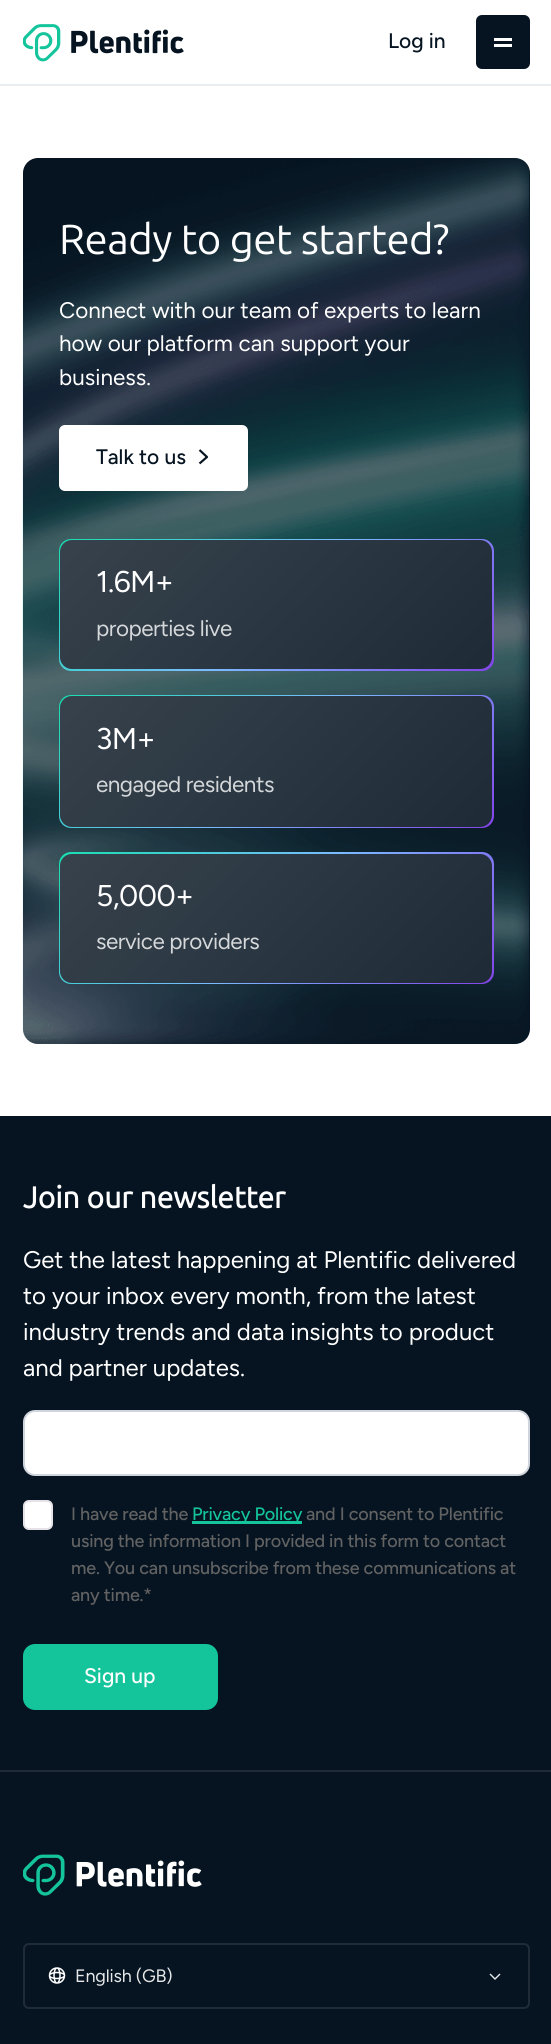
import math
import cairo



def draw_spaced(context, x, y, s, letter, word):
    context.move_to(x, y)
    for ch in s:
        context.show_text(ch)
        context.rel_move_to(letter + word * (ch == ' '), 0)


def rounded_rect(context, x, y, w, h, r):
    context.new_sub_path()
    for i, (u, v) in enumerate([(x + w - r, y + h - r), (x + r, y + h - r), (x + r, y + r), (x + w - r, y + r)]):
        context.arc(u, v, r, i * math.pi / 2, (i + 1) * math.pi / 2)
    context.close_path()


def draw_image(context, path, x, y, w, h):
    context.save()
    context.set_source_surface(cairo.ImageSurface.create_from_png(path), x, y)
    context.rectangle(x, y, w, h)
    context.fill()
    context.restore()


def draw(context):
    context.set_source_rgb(1, 1, 1)
    context.paint()
    context.set_source_rgb(234 / 255, 237 / 255, 239 / 255)
    context.rectangle(0, 84, 551, 2)
    context.fill()
    draw_image(context, "images/1.png", 23, 24, 161, 38)
    context.set_source_rgb(6 / 255, 20 / 255, 33 / 255)
    rounded_rect(context, 476, 15, 54, 54, 6)
    context.fill()
    context.set_source_rgb(1, 1, 1)
    context.rectangle(494, 38, 18, 3)
    context.fill()
    context.rectangle(494, 44, 18, 3)
    context.fill()
    context.set_source_rgb(6 / 255, 20 / 255, 33 / 255)
    rounded_rect(context, 23, 158, 507, 886, 15)
    context.fill()
    draw_image(context, "images/2.png", 22, 158, 508, 886)
    context.set_source_rgb(1, 1, 1)
    rounded_rect(context, 60, 426, 187, 64, 5)
    context.fill_preserve()
    context.stroke()
    context.new_path()
    context.move_to(199.5, 450)
    context.line_to(207, 457)
    context.line_to(199.5, 463.5)
    context.set_source_rgb(6 / 255, 20 / 255, 33 / 255)
    context.set_line_width(2.2)
    context.set_line_join(cairo.LineJoin.ROUND)
    context.stroke()
    gradient = cairo.LinearGradient(134, 463, 418, 746)
    gradient.add_color_stop_rgba(0, 24 / 255, 223 / 255, 177 / 255, 1)
    gradient.add_color_stop_rgba(0.5, 123 / 255, 187 / 255, 1, 1)
    gradient.add_color_stop_rgba(1, 131 / 255, 68 / 255, 233 / 255, 1)
    context.set_source(gradient)
    rounded_rect(context, 59, 539, 435, 132, 12)
    context.fill()
    context.set_source_rgb(6 / 255, 20 / 255, 33 / 255)
    rounded_rect(context, 60, 540, 432, 129, 12)
    context.fill()
    gradient = cairo.LinearGradient(136, 464, 416, 745)
    gradient.add_color_stop_rgba(0, 250 / 255, 250 / 255, 250 / 255, 0.2)
    gradient.add_color_stop_rgba(1, 250 / 255, 250 / 255, 250 / 255, 0.1)
    context.set_source(gradient)
    rounded_rect(context, 60, 540, 432, 129, 12)
    context.fill()
    gradient = cairo.LinearGradient(134, 619, 418, 903)
    gradient.add_color_stop_rgba(0, 24 / 255, 223 / 255, 177 / 255, 1)
    gradient.add_color_stop_rgba(0.5, 123 / 255, 187 / 255, 1, 1)
    gradient.add_color_stop_rgba(1, 131 / 255, 68 / 255, 233 / 255, 1)
    context.set_source(gradient)
    rounded_rect(context, 59, 695, 435, 133, 12)
    context.fill()
    context.set_source_rgb(6 / 255, 20 / 255, 33 / 255)
    rounded_rect(context, 60, 696, 432, 131, 12)
    context.fill()
    gradient = cairo.LinearGradient(135, 621, 417, 902)
    gradient.add_color_stop_rgba(0, 250 / 255, 250 / 255, 250 / 255, 0.2)
    gradient.add_color_stop_rgba(1, 250 / 255, 250 / 255, 250 / 255, 0.1)
    context.set_source(gradient)
    rounded_rect(context, 60, 696, 432, 131, 12)
    context.fill()
    gradient = cairo.LinearGradient(134, 776, 418, 1060)
    gradient.add_color_stop_rgba(0, 24 / 255, 223 / 255, 177 / 255, 1)
    gradient.add_color_stop_rgba(0.5, 123 / 255, 187 / 255, 1, 1)
    gradient.add_color_stop_rgba(1, 131 / 255, 68 / 255, 233 / 255, 1)
    context.set_source(gradient)
    rounded_rect(context, 59, 852, 435, 132, 12)
    context.fill()
    context.set_source_rgb(6 / 255, 20 / 255, 33 / 255)
    rounded_rect(context, 60, 854, 432, 129, 12)
    context.fill()
    gradient = cairo.LinearGradient(136, 778, 416, 1058)
    gradient.add_color_stop_rgba(0, 250 / 255, 250 / 255, 250 / 255, 0.2)
    gradient.add_color_stop_rgba(1, 250 / 255, 250 / 255, 250 / 255, 0.1)
    context.set_source(gradient)
    rounded_rect(context, 60, 854, 432, 129, 12)
    context.fill()
    context.set_source_rgb(6 / 255, 20 / 255, 33 / 255)
    context.rectangle(0, 1116, 551, 654)
    context.fill()
    context.set_source_rgb(31 / 255, 44 / 255, 55 / 255)
    context.rectangle(0, 1770, 551, 2)
    context.fill()
    context.set_source_rgb(1, 1, 1)
    rounded_rect(context, 24, 1411, 505, 64, 11)
    context.fill_preserve()
    context.set_source_rgb(208 / 255, 213 / 255, 221 / 255)
    context.set_line_width(2)
    context.set_line_join(cairo.LineJoin.MITER)
    context.stroke()
    context.set_source_rgb(1, 1, 1)
    rounded_rect(context, 23, 1500, 30, 30, 6)
    context.fill()
    rounded_rect(context, 24, 1501, 28, 28, 5)
    context.set_source_rgba(22 / 255, 8 / 255, 40 / 255, 0.11)
    context.stroke()
    context.set_source_rgb(20 / 255, 197 / 255, 156 / 255)
    context.rectangle(192, 1521, 110, 3)
    context.fill()
    rounded_rect(context, 23, 1644, 195, 66, 12)
    context.fill()
    context.set_source_rgb(6 / 255, 20 / 255, 33 / 255)
    context.rectangle(0, 1772, 551, 272)
    context.fill()
    draw_image(context, "images/3.png", 23, 1854, 179, 42)
    rounded_rect(context, 24, 1944, 505, 64, 5)
    context.set_source_rgb(31 / 255, 44 / 255, 55 / 255)
    context.stroke()
    draw_image(context, "images/4.png", 48, 1967, 18, 17)
    context.new_path()
    context.move_to(490, 1974)
    context.line_to(495, 1979)
    context.line_to(500, 1974)
    context.set_source_rgb(230 / 255, 232 / 255, 233 / 255)
    context.set_line_width(1.4)
    context.stroke()
    context.select_font_face("Figtree Medium")
    context.set_font_size(21)
    context.set_source_rgb(6 / 255, 20 / 255, 33 / 255)
    context.move_to(388, 48)
    context.show_text("Log in")
    context.select_font_face("Ubuntu Sans")
    context.set_font_size(42)
    context.set_source_rgb(1, 1, 1)
    draw_spaced(context, 59, 254, "Ready to get started?", -0.6, 0)
    context.select_font_face("Figtree")
    context.set_font_size(22.5)
    context.move_to(59, 318)
    context.show_text("Connect with our team of experts to learn")
    context.move_to(59, 351)
    context.show_text("how our platform can support your")
    context.move_to(59, 385)
    context.show_text("business.")
    context.select_font_face("Figtree Medium")
    context.set_font_size(21)
    context.set_source_rgb(6 / 255, 20 / 255, 33 / 255)
    context.move_to(96, 464)
    context.show_text("Talk to us")
    context.select_font_face("Figtree")
    context.set_font_size(30)
    context.set_source_rgb(1, 1, 1)
    draw_spaced(context, 96, 592, "1.6M+", -0.5, 0)
    context.set_font_size(22.5)
    context.set_source_rgb(213 / 255, 216 / 255, 218 / 255)
    draw_spaced(context, 96, 636, "properties live", -0.5, 0)
    context.set_font_size(30)
    context.set_source_rgb(1, 1, 1)
    draw_spaced(context, 96, 749, "3M+", -0.5, 0)
    context.set_font_size(22.5)
    context.set_source_rgb(213 / 255, 216 / 255, 218 / 255)
    draw_spaced(context, 96, 792, "engaged residents", -0.5, 0)
    context.set_font_size(30)
    context.set_source_rgb(1, 1, 1)
    draw_spaced(context, 96, 906, "5,000+", -0.5, 0)
    context.set_font_size(22.5)
    context.set_source_rgb(213 / 255, 216 / 255, 218 / 255)
    draw_spaced(context, 96, 949, "service providers", -0.5, 0)
    context.select_font_face("Ubuntu Sans", cairo.FontSlant.NORMAL, cairo.FontWeight.BOLD)
    context.set_font_size(30)
    context.set_source_rgb(1, 1, 1)
    context.move_to(23, 1208)
    context.show_text("Join our newsletter")
    context.select_font_face("Figtree")
    context.set_font_size(24)
    context.move_to(23, 1268)
    context.show_text("Get the latest happening at Plentific delivered")
    context.move_to(23, 1304)
    context.show_text("to your inbox every month, from the latest")
    context.move_to(23, 1340)
    context.show_text("industry trends and data insights to product")
    context.move_to(23, 1376)
    context.show_text("and partner updates.")
    context.select_font_face("Figtree Medium")
    context.set_font_size(18)
    context.set_source_rgb(98 / 255, 98 / 255, 98 / 255)
    draw_spaced(context, 71, 1520, "I have read the", -0.18, 0)
    context.set_source_rgb(20 / 255, 197 / 255, 156 / 255)
    draw_spaced(context, 192, 1520, "Privacy Policy", -0.18, 0)
    context.set_source_rgb(98 / 255, 98 / 255, 98 / 255)
    draw_spaced(context, 306, 1520, "and I consent to Plentific", -0.18, 0)
    draw_spaced(context, 71, 1547, "using the information I provided in this form to contact", -0.18, 0)
    draw_spaced(context, 71, 1574, "me. You can unsubscribe from these communications at", -0.18, 0)
    draw_spaced(context, 71, 1601, "any time.*", -0.18, 0)
    context.set_font_size(21)
    context.set_source_rgb(1, 1, 1)
    context.move_to(84, 1683)
    context.show_text("Sign up")
    context.select_font_face("Figtree")
    context.set_font_size(18)
    context.set_source_rgb(230 / 255, 232 / 255, 233 / 255)
    draw_spaced(context, 75, 1982, "English (GB)", -0.18, 0)


surface = cairo.ImageSurface(cairo.Format.RGB24, 551, 2044)
context = cairo.Context(surface)
options = cairo.FontOptions()
options.set_hint_metrics(cairo.HintMetrics.OFF)
options.set_hint_style(cairo.HintStyle.NONE)
context.set_font_options(options)
context.set_miter_limit(4)
draw(context)
surface.write_to_png("out.png")
